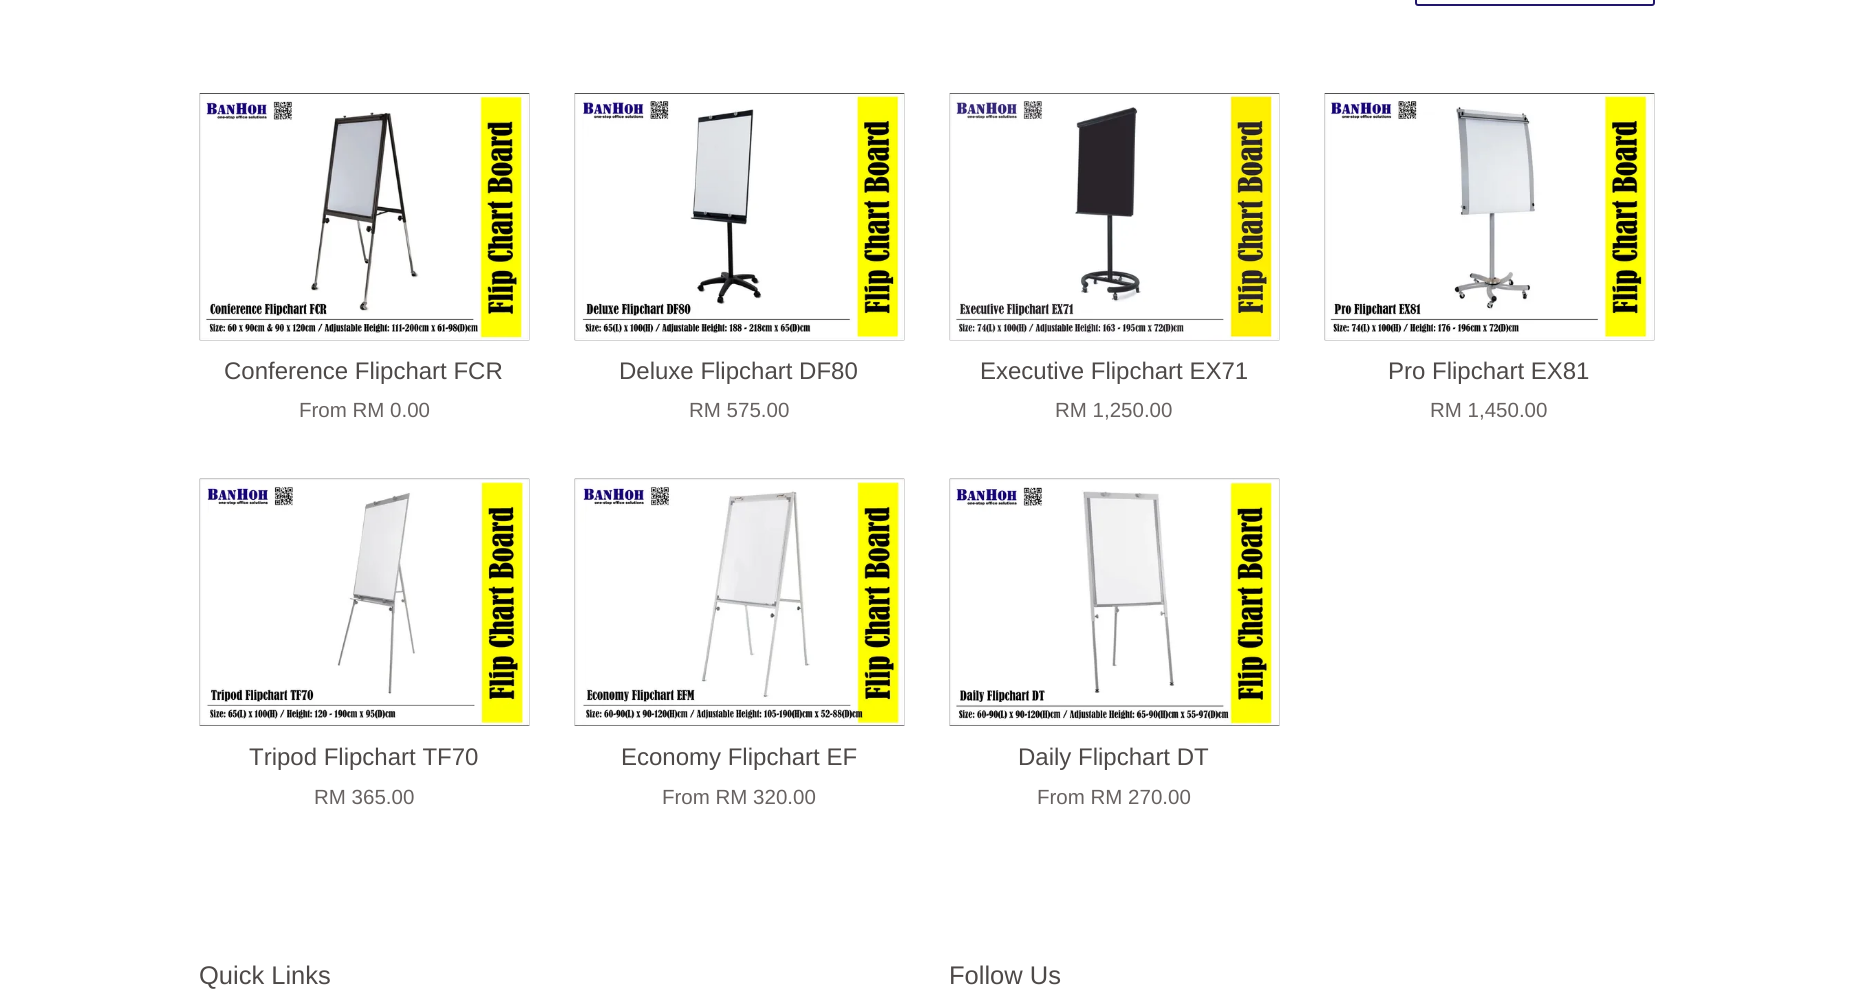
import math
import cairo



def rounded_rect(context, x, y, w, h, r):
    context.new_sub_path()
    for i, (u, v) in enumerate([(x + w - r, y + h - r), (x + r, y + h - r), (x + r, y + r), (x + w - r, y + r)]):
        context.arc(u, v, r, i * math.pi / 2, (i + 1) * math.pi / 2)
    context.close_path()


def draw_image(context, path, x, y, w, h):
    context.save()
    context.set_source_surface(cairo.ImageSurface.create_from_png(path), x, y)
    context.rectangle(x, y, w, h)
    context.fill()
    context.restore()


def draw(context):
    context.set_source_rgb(1, 1, 1)
    context.paint()
    rounded_rect(context, 1416, -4, 238, 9, 2)
    context.set_source_rgb(34 / 255, 23 / 255, 105 / 255)
    context.stroke()
    draw_image(context, "images/1.png", 199, 93, 331, 248)
    draw_image(context, "images/2.png", 574, 93, 331, 248)
    draw_image(context, "images/3.png", 949, 93, 331, 248)
    draw_image(context, "images/4.png", 1324, 93, 331, 248)
    draw_image(context, "images/5.png", 199, 478, 331, 248)
    draw_image(context, "images/6.png", 574, 478, 331, 248)
    draw_image(context, "images/7.png", 949, 478, 331, 248)
    context.select_font_face("Liberation Sans")
    context.set_font_size(24)
    context.set_source_rgb(77 / 255, 73 / 255, 72 / 255)
    context.move_to(224, 379)
    context.show_text("Conference Flipchart FCR")
    context.set_font_size(20.5)
    context.set_source_rgb(103 / 255, 98 / 255, 97 / 255)
    context.move_to(299, 417)
    context.show_text("From RM 0.00")
    context.set_font_size(24)
    context.set_source_rgb(77 / 255, 73 / 255, 72 / 255)
    context.move_to(619, 379)
    context.show_text("Deluxe Flipchart DF80")
    context.set_font_size(20.5)
    context.set_source_rgb(103 / 255, 98 / 255, 97 / 255)
    context.move_to(689, 417)
    context.show_text("RM 575.00")
    context.set_font_size(24)
    context.set_source_rgb(77 / 255, 73 / 255, 72 / 255)
    context.move_to(980, 379)
    context.show_text("Executive Flipchart EX71")
    context.set_font_size(20.5)
    context.set_source_rgb(103 / 255, 98 / 255, 97 / 255)
    context.move_to(1055, 417)
    context.show_text("RM 1,250.00")
    context.set_font_size(24)
    context.set_source_rgb(77 / 255, 73 / 255, 72 / 255)
    context.move_to(1388, 379)
    context.show_text("Pro Flipchart EX81")
    context.set_font_size(20.5)
    context.set_source_rgb(103 / 255, 98 / 255, 97 / 255)
    context.move_to(1430, 417)
    context.show_text("RM 1,450.00")
    context.set_font_size(24)
    context.set_source_rgb(77 / 255, 73 / 255, 72 / 255)
    context.move_to(249, 765)
    context.show_text("Tripod Flipchart TF70")
    context.set_font_size(20.5)
    context.set_source_rgb(103 / 255, 98 / 255, 97 / 255)
    context.move_to(314, 804)
    context.show_text("RM 365.00")
    context.set_font_size(24)
    context.set_source_rgb(77 / 255, 73 / 255, 72 / 255)
    context.move_to(621, 765)
    context.show_text("Economy Flipchart EF")
    context.set_font_size(20.5)
    context.set_source_rgb(103 / 255, 98 / 255, 97 / 255)
    context.move_to(662, 804)
    context.show_text("From RM 320.00")
    context.set_font_size(24)
    context.set_source_rgb(77 / 255, 73 / 255, 72 / 255)
    context.move_to(1018, 765)
    context.show_text("Daily Flipchart DT")
    context.set_font_size(20.5)
    context.set_source_rgb(103 / 255, 98 / 255, 97 / 255)
    context.move_to(1037, 804)
    context.show_text("From RM 270.00")
    context.set_font_size(25.5)
    context.set_source_rgb(77 / 255, 73 / 255, 72 / 255)
    context.move_to(199, 984)
    context.show_text("Quick Links")
    context.move_to(949, 984)
    context.show_text("Follow Us")


surface = cairo.ImageSurface(cairo.Format.RGB24, 1852, 990)
context = cairo.Context(surface)
options = cairo.FontOptions()
options.set_hint_metrics(cairo.HintMetrics.OFF)
options.set_hint_style(cairo.HintStyle.NONE)
context.set_font_options(options)
context.set_miter_limit(4)
draw(context)
surface.write_to_png("out.png")
